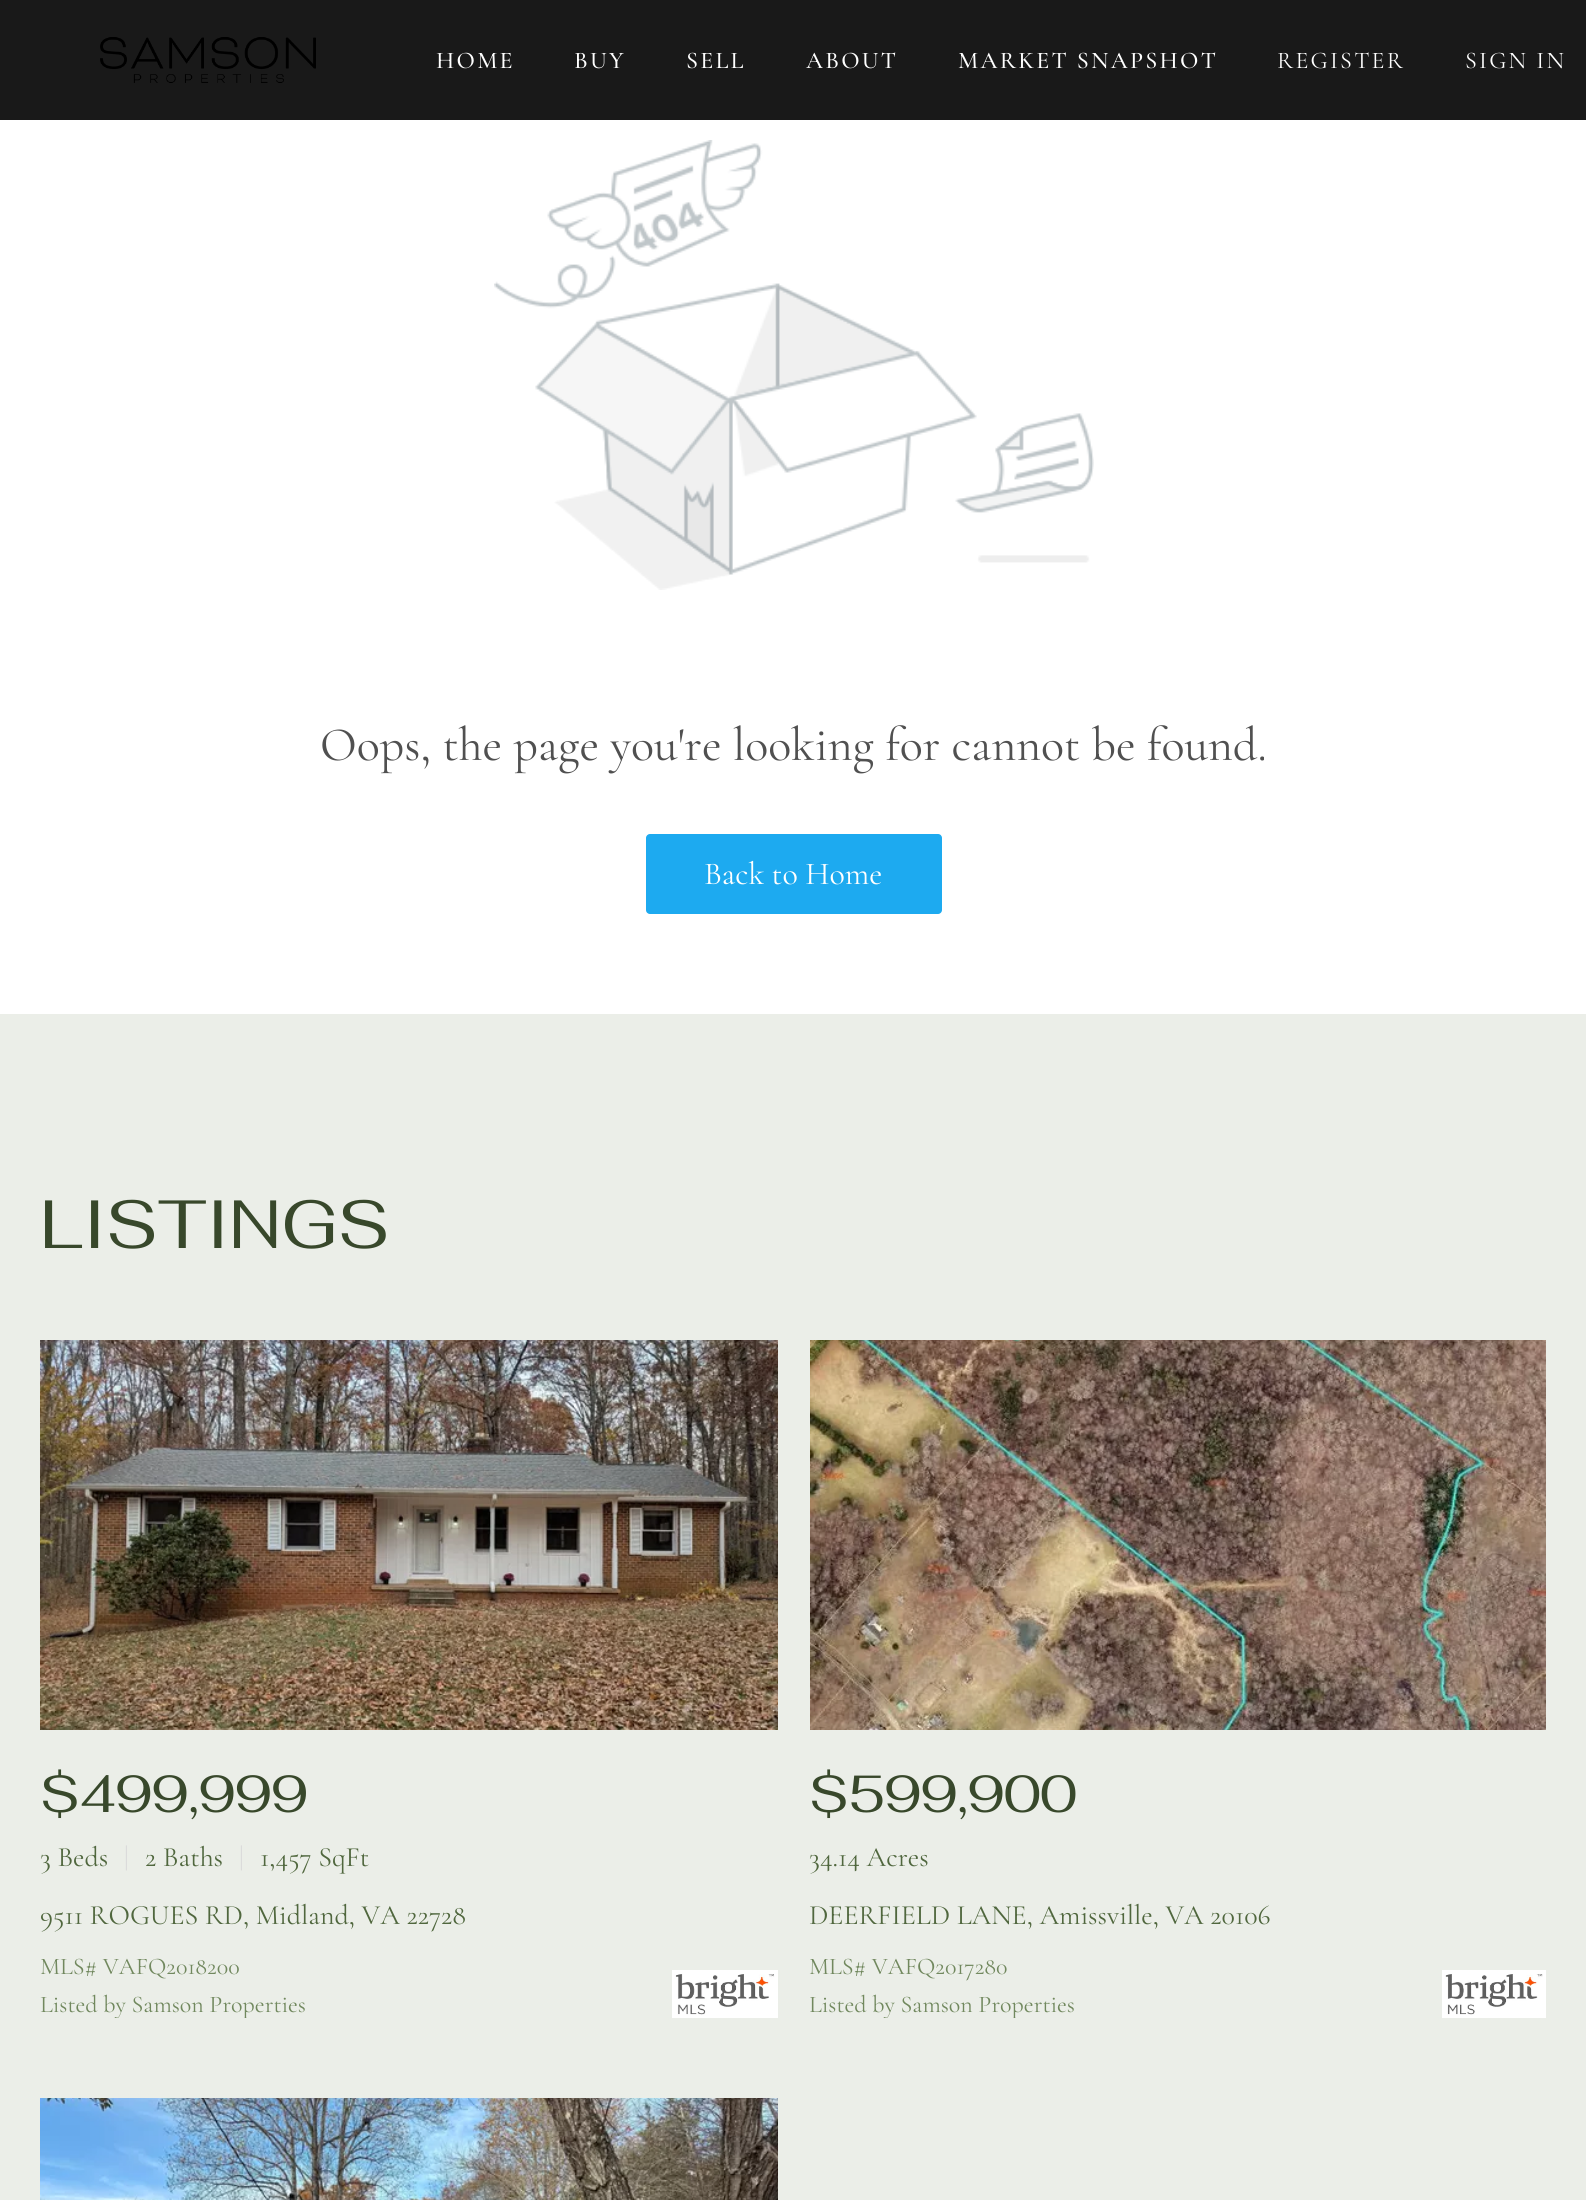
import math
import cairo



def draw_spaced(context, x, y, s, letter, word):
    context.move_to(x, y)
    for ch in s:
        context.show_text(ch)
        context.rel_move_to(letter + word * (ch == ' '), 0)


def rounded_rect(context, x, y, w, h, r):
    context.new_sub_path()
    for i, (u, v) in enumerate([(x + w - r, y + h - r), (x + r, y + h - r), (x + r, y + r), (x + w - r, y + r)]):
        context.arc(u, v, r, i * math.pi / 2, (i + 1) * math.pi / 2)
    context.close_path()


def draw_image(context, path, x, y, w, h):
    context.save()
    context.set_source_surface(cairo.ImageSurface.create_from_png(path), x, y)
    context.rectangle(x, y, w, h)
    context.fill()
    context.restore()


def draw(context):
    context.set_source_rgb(1, 1, 1)
    context.paint()
    context.set_source_rgb(25 / 255, 25 / 255, 25 / 255)
    context.rectangle(0, 0, 1586, 120)
    context.fill()
    draw_image(context, "images/1.png", 100, 37, 216, 46)
    draw_image(context, "images/2.png", 494, 140, 600, 450)
    context.set_source_rgb(29 / 255, 170 / 255, 240 / 255)
    rounded_rect(context, 646, 834, 296, 80, 4)
    context.fill()
    context.set_source_rgb(235 / 255, 238 / 255, 232 / 255)
    context.rectangle(0, 1014, 1586, 1186)
    context.fill()
    draw_image(context, "images/3.png", 40, 1340, 738, 390)
    draw_image(context, "images/4.png", 672, 1970, 106, 48)
    draw_image(context, "images/5.png", 810, 1340, 736, 390)
    draw_image(context, "images/6.png", 1442, 1970, 104, 48)
    draw_image(context, "images/7.png", 40, 2098, 738, 102)
    context.select_font_face("Cormorant Garamond Medium")
    context.set_font_size(24)
    context.set_source_rgb(1, 1, 1)
    draw_spaced(context, 436, 68, "HOME", 2.25, 0)
    draw_spaced(context, 574, 68, "BUY", 2.25, 0)
    draw_spaced(context, 686, 68, "SELL", 2.25, 0)
    draw_spaced(context, 806, 68, "ABOUT", 2.25, 0)
    draw_spaced(context, 958, 68, "MARKET SNAPSHOT", 2.25, 0)
    context.select_font_face("Cormorant Garamond")
    draw_spaced(context, 1277, 68, "REGISTER", 2.25, 0)
    draw_spaced(context, 1465, 68, "SIGN IN", 2.25, 0)
    context.set_font_size(48)
    context.set_source_rgb(80 / 255, 80 / 255, 80 / 255)
    context.move_to(320, 760)
    context.show_text("Oops, the page you're looking for cannot be found.")
    context.set_font_size(32)
    context.set_source_rgb(1, 1, 1)
    context.move_to(704, 884)
    context.show_text("Back to Home")
    context.select_font_face("Fahkwang")
    context.set_font_size(68)
    context.set_source_rgb(56 / 255, 72 / 255, 43 / 255)
    context.move_to(40, 1248)
    context.show_text("LISTINGS")
    context.set_font_size(52)
    context.move_to(40, 1812)
    context.show_text("$499,999")
    context.select_font_face("Cormorant Garamond")
    context.set_font_size(28)
    context.set_source_rgb(80 / 255, 103 / 255, 62 / 255)
    context.move_to(40, 1866)
    context.show_text("3 Beds")
    context.set_source_rgb(218 / 255, 218 / 255, 218 / 255)
    context.move_to(124, 1866)
    context.show_text("|")
    context.set_source_rgb(80 / 255, 103 / 255, 62 / 255)
    context.move_to(145, 1866)
    context.show_text("2 Baths")
    context.set_source_rgb(218 / 255, 218 / 255, 218 / 255)
    context.move_to(239, 1866)
    context.show_text("|")
    context.set_source_rgb(80 / 255, 103 / 255, 62 / 255)
    context.move_to(260, 1866)
    context.show_text("1,457 SqFt")
    context.move_to(40, 1924)
    context.show_text("9511 ROGUES RD, Midland, VA 22728")
    context.set_font_size(24)
    context.set_source_rgb(113 / 255, 136 / 255, 94 / 255)
    context.move_to(40, 1974)
    context.show_text("MLS# VAFQ2018200")
    context.save()
    context.rectangle(40, 1990, 478, 28)
    context.clip()
    context.move_to(40, 2012)
    context.show_text("Listed by Samson Properties")
    context.restore()
    context.select_font_face("Fahkwang")
    context.set_font_size(52)
    context.set_source_rgb(56 / 255, 72 / 255, 43 / 255)
    context.move_to(809, 1812)
    context.show_text("$599,900")
    context.select_font_face("Cormorant Garamond")
    context.set_font_size(28)
    context.set_source_rgb(80 / 255, 103 / 255, 62 / 255)
    context.move_to(809, 1866)
    context.show_text("34.14 Acres")
    context.move_to(809, 1924)
    context.show_text("DEERFIELD LANE, Amissville, VA 20106")
    context.set_font_size(24)
    context.set_source_rgb(113 / 255, 136 / 255, 94 / 255)
    context.move_to(809, 1974)
    context.show_text("MLS# VAFQ2017280")
    context.save()
    context.rectangle(810, 1990, 476, 28)
    context.clip()
    context.move_to(809, 2012)
    context.show_text("Listed by Samson Properties")
    context.restore()


surface = cairo.ImageSurface(cairo.Format.RGB24, 1586, 2200)
context = cairo.Context(surface)
options = cairo.FontOptions()
options.set_hint_metrics(cairo.HintMetrics.OFF)
options.set_hint_style(cairo.HintStyle.NONE)
context.set_font_options(options)
context.set_miter_limit(4)
draw(context)
surface.write_to_png("out.png")
